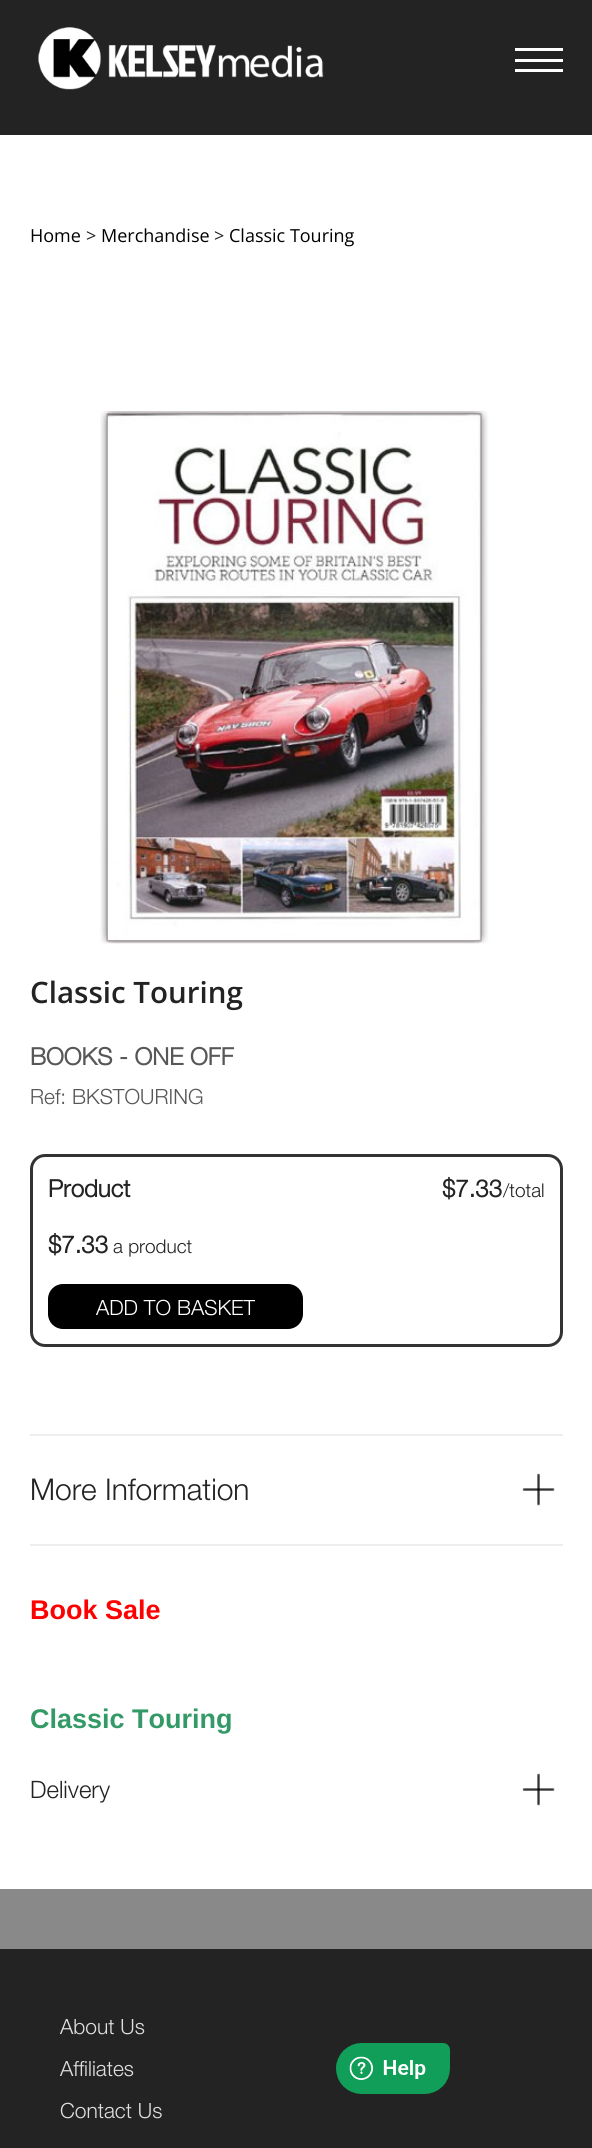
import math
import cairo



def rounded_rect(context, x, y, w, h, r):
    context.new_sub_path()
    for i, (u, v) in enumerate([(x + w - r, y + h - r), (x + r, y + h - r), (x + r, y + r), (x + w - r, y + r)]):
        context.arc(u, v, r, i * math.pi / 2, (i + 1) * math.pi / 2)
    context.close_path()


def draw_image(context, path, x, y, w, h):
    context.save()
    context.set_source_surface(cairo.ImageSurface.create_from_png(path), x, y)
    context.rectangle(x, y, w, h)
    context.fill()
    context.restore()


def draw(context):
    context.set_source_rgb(1, 1, 1)
    context.paint()
    context.set_source_rgb(35 / 255, 35 / 255, 35 / 255)
    context.rectangle(0, 0, 592, 135)
    context.fill()
    draw_image(context, "images/1.png", 38, 27, 286, 63)
    context.set_source_rgb(1, 1, 1)
    context.rectangle(515, 48, 48, 3)
    context.fill()
    context.rectangle(515, 59, 48, 3)
    context.fill()
    context.rectangle(515, 69, 48, 3)
    context.fill()
    draw_image(context, "images/2.png", 100, 411, 389, 533)
    rounded_rect(context, 31.5, 1155.5, 530, 190, 13.5)
    context.set_source_rgb(51 / 255, 51 / 255, 51 / 255)
    context.set_line_width(3)
    context.stroke()
    context.set_source_rgb(0, 0, 0)
    rounded_rect(context, 48, 1284, 255, 45, 15)
    context.fill()
    context.set_source_rgb(238 / 255, 238 / 255, 238 / 255)
    context.rectangle(30, 1434, 533, 2)
    context.fill()
    draw_image(context, "images/3.png", 522, 1473, 33, 33)
    context.rectangle(30, 1544, 533, 2)
    context.fill()
    draw_image(context, "images/3.png", 522, 1773, 33, 33)
    context.set_source_rgb(35 / 255, 35 / 255, 35 / 255)
    context.rectangle(0, 1949, 592, 199)
    context.fill()
    context.set_source_rgb(137 / 255, 137 / 255, 137 / 255)
    context.rectangle(0, 1889, 592, 60)
    context.fill()
    draw_image(context, "images/4.png", 336, 2043, 114, 51)
    context.select_font_face("Open Sans")
    context.set_font_size(18)
    context.set_source_rgb(0, 0, 0)
    context.move_to(30, 242)
    context.show_text("Home")
    context.set_source_rgb(35 / 255, 35 / 255, 35 / 255)
    context.move_to(86, 242)
    context.show_text(">")
    context.set_source_rgb(0, 0, 0)
    context.move_to(101, 242)
    context.show_text("Merchandise")
    context.set_source_rgb(35 / 255, 35 / 255, 35 / 255)
    context.move_to(214, 242)
    context.show_text(">")
    context.set_source_rgb(0, 0, 0)
    context.move_to(229, 242)
    context.show_text("Classic Touring")
    context.select_font_face("Open Sans SemiBold")
    context.set_font_size(29.5)
    context.set_source_rgb(35 / 255, 35 / 255, 35 / 255)
    context.move_to(30, 1003)
    context.show_text("Classic Touring")
    context.select_font_face("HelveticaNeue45", cairo.FontSlant.NORMAL, cairo.FontWeight.BOLD)
    context.set_font_size(24)
    context.set_source_rgb(87 / 255, 87 / 255, 87 / 255)
    context.move_to(30, 1065)
    context.show_text("BOOKS - ONE OFF")
    context.select_font_face("HelveticaNeue45 Light")
    context.set_font_size(21)
    context.move_to(30, 1104)
    context.show_text("Ref: BKSTOURING")
    context.select_font_face("HelveticaNeue45", cairo.FontSlant.NORMAL, cairo.FontWeight.BOLD)
    context.set_font_size(24)
    context.set_source_rgb(35 / 255, 35 / 255, 35 / 255)
    context.move_to(48, 1197)
    context.show_text("Product")
    context.move_to(442, 1197)
    context.show_text("$7.33")
    context.select_font_face("HelveticaNeue45 Light")
    context.set_font_size(19)
    context.move_to(503, 1197)
    context.show_text("/total")
    context.select_font_face("HelveticaNeue45", cairo.FontSlant.NORMAL, cairo.FontWeight.BOLD)
    context.set_font_size(24)
    context.move_to(48, 1253)
    context.show_text("$7.33")
    context.select_font_face("HelveticaNeue45 Light")
    context.set_font_size(19)
    context.move_to(113, 1253)
    context.show_text("a product")
    context.set_font_size(21)
    context.set_source_rgb(1, 1, 1)
    context.move_to(96, 1315)
    context.show_text("ADD TO BASKET")
    context.set_font_size(30)
    context.set_source_rgb(35 / 255, 35 / 255, 35 / 255)
    context.move_to(30, 1500)
    context.show_text("More Information")
    context.select_font_face("Liberation Sans", cairo.FontSlant.NORMAL, cairo.FontWeight.BOLD)
    context.set_font_size(27)
    context.set_source_rgb(1, 0, 0)
    context.move_to(30, 1619)
    context.show_text("Book Sale")
    context.set_source_rgb(51 / 255, 153 / 255, 102 / 255)
    context.move_to(30, 1728)
    context.show_text("Classic Touring")
    context.select_font_face("HelveticaNeue45 Light")
    context.set_font_size(24)
    context.set_source_rgb(35 / 255, 35 / 255, 35 / 255)
    context.move_to(30, 1798)
    context.show_text("Delivery")
    context.set_font_size(21)
    context.set_source_rgb(223 / 255, 223 / 255, 223 / 255)
    context.move_to(60, 2034)
    context.show_text("About Us")
    context.move_to(60, 2076)
    context.show_text("Affiliates")
    context.move_to(60, 2118)
    context.show_text("Contact Us")


surface = cairo.ImageSurface(cairo.Format.RGB24, 592, 2148)
context = cairo.Context(surface)
options = cairo.FontOptions()
options.set_hint_metrics(cairo.HintMetrics.OFF)
options.set_hint_style(cairo.HintStyle.NONE)
context.set_font_options(options)
context.set_miter_limit(4)
draw(context)
surface.write_to_png("out.png")
